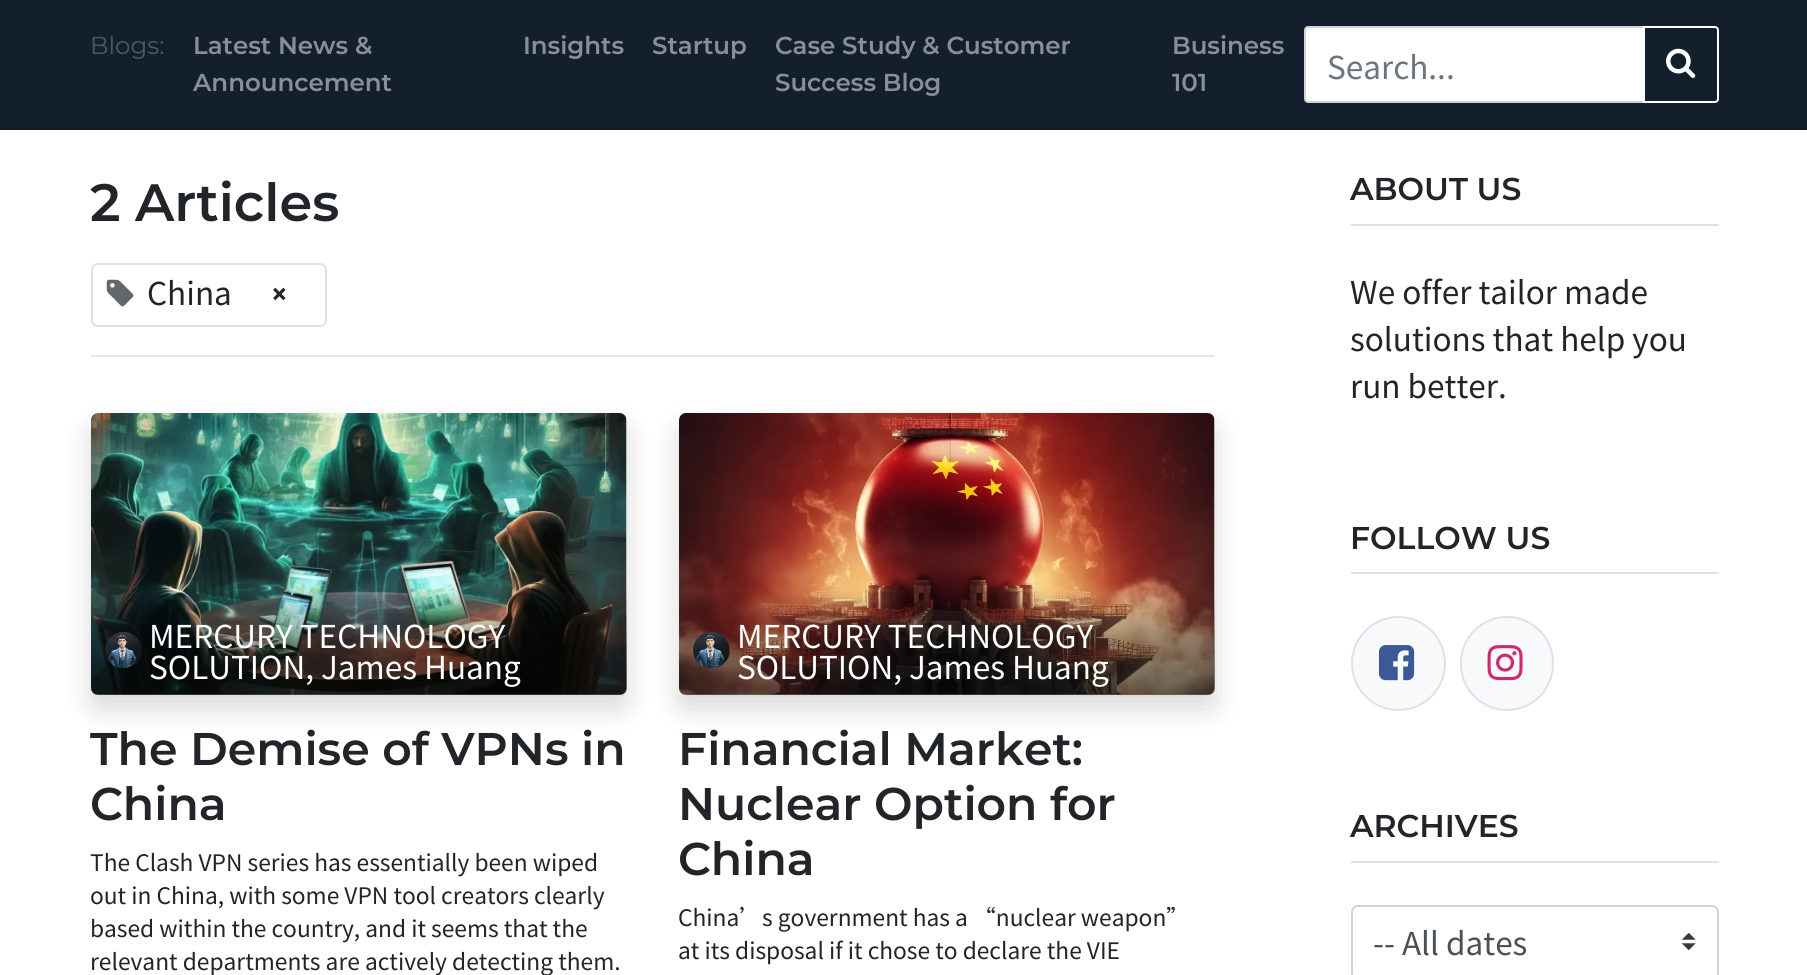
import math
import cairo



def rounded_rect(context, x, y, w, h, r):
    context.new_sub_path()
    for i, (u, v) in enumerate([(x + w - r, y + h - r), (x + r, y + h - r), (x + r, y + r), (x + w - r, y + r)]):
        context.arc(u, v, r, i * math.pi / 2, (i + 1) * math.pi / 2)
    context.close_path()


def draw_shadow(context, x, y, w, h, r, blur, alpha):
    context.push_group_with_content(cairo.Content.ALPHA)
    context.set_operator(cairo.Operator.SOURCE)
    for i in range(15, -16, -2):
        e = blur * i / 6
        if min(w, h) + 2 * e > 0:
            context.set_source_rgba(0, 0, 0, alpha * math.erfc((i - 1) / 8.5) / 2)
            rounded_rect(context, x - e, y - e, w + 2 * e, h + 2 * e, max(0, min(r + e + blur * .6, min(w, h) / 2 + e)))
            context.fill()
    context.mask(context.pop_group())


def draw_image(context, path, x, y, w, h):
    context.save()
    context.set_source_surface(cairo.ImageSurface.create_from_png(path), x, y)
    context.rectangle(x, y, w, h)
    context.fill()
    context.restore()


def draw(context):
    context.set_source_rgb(1, 1, 1)
    context.paint()
    context.set_source_rgb(20 / 255, 31 / 255, 46 / 255)
    context.rectangle(0, 0, 1807, 130)
    context.fill()
    context.set_source_rgb(1, 1, 1)
    context.new_path()
    context.move_to(1308, 27)
    context.line_to(1644, 27)
    context.line_to(1644, 102)
    context.line_to(1308, 102)
    context.curve_to(1306.5, 102, 1305, 100.5, 1305, 99)
    context.line_to(1305, 30)
    context.curve_to(1305, 28.5, 1306.5, 27, 1308, 27)
    context.close_path()
    context.fill_preserve()
    context.set_source_rgb(206 / 255, 212 / 255, 218 / 255)
    context.stroke()
    context.new_path()
    context.move_to(1644, 27)
    context.line_to(1715, 27)
    context.curve_to(1716.5, 27, 1718, 28.5, 1718, 30)
    context.line_to(1718, 99)
    context.curve_to(1718, 100.5, 1716.5, 102, 1715, 102)
    context.line_to(1644, 102)
    context.close_path()
    context.set_source_rgb(1, 1, 1)
    context.stroke()
    draw_image(context, "images/1.png", 1666, 48, 30, 30)
    rounded_rect(context, 92, 264, 234, 62, 6)
    context.set_source_rgb(222 / 255, 226 / 255, 230 / 255)
    context.stroke()
    draw_image(context, "images/2.png", 106, 279, 28, 28)
    context.set_source_rgb(230 / 255, 230 / 255, 230 / 255)
    context.rectangle(91, 355, 1124, 2)
    context.fill()
    context.set_source_rgb(0, 0, 0)
    draw_shadow(context, 91, 427, 536, 282, 7, 14, 0.15)
    draw_image(context, "images/3.png", 91, 413, 536, 282)
    gradient = cairo.LinearGradient(359, 590, 359, 695)
    gradient.add_color_stop_rgba(0, 0, 0, 0, 0)
    gradient.add_color_stop_rgba(0.19, 0, 0, 0, 0.13)
    gradient.add_color_stop_rgba(0.34, 0, 0, 0, 0.23)
    gradient.add_color_stop_rgba(0.47, 0, 0, 0, 0.31)
    gradient.add_color_stop_rgba(0.56, 0, 0, 0, 0.36)
    gradient.add_color_stop_rgba(0.65, 0, 0, 0, 0.4)
    gradient.add_color_stop_rgba(0.73, 0, 0, 0, 0.43)
    gradient.add_color_stop_rgba(0.8, 0, 0, 0, 0.46)
    gradient.add_color_stop_rgba(0.86, 0, 0, 0, 0.48)
    gradient.add_color_stop_rgba(0.91, 0, 0, 0, 0.49)
    gradient.add_color_stop_rgba(0.95, 0, 0, 0, 0.49)
    gradient.add_color_stop_rgba(0.98, 0, 0, 0, 0.5)
    gradient.add_color_stop_rgba(1, 0, 0, 0, 0.5)
    context.set_source(gradient)
    context.new_path()
    context.move_to(91, 590)
    context.line_to(627, 590)
    context.line_to(627, 688)
    context.curve_to(627, 692, 624, 695, 620, 695)
    context.line_to(98, 695)
    context.curve_to(94, 695, 91, 692, 91, 688)
    context.close_path()
    context.fill()
    draw_image(context, "images/4.png", 105, 632, 37, 37)
    context.set_source_rgb(0, 0, 0)
    draw_shadow(context, 679, 427, 536, 282, 7, 14, 0.15)
    draw_image(context, "images/5.png", 679, 413, 536, 282)
    gradient = cairo.LinearGradient(947, 590, 947, 695)
    gradient.add_color_stop_rgba(0, 0, 0, 0, 0)
    gradient.add_color_stop_rgba(0.19, 0, 0, 0, 0.13)
    gradient.add_color_stop_rgba(0.34, 0, 0, 0, 0.23)
    gradient.add_color_stop_rgba(0.47, 0, 0, 0, 0.31)
    gradient.add_color_stop_rgba(0.56, 0, 0, 0, 0.36)
    gradient.add_color_stop_rgba(0.65, 0, 0, 0, 0.4)
    gradient.add_color_stop_rgba(0.73, 0, 0, 0, 0.43)
    gradient.add_color_stop_rgba(0.8, 0, 0, 0, 0.46)
    gradient.add_color_stop_rgba(0.86, 0, 0, 0, 0.48)
    gradient.add_color_stop_rgba(0.91, 0, 0, 0, 0.49)
    gradient.add_color_stop_rgba(0.95, 0, 0, 0, 0.49)
    gradient.add_color_stop_rgba(0.98, 0, 0, 0, 0.5)
    gradient.add_color_stop_rgba(1, 0, 0, 0, 0.5)
    context.set_source(gradient)
    context.new_path()
    context.move_to(679, 590)
    context.line_to(1215, 590)
    context.line_to(1215, 688)
    context.curve_to(1215, 692, 1212, 695, 1208, 695)
    context.line_to(686, 695)
    context.curve_to(682, 695, 679, 692, 679, 688)
    context.close_path()
    context.fill()
    draw_image(context, "images/6.png", 693, 632, 37, 37)
    context.set_source_rgb(222 / 255, 226 / 255, 230 / 255)
    context.rectangle(1351, 224, 368, 2)
    context.fill()
    context.rectangle(1351, 572, 368, 2)
    context.fill()
    context.set_source_rgb(248 / 255, 249 / 255, 250 / 255)
    context.arc(1398.5, 663.5, 46.5, 0, 2 * math.pi)
    context.fill_preserve()
    context.set_source_rgb(222 / 255, 226 / 255, 230 / 255)
    context.stroke()
    draw_image(context, "images/7.png", 1379, 645, 36, 36)
    context.set_source_rgb(248 / 255, 249 / 255, 250 / 255)
    rounded_rect(context, 1461, 617, 92, 93, 46)
    context.fill_preserve()
    context.set_source_rgb(222 / 255, 226 / 255, 230 / 255)
    context.stroke()
    draw_image(context, "images/8.png", 1487, 645, 36, 36)
    context.rectangle(1351, 861, 368, 2)
    context.fill()
    draw_image(context, "images/9.png", 1682, 933, 14, 17)
    rounded_rect(context, 1352, 906, 366, 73, 6)
    context.set_source_rgb(206 / 255, 212 / 255, 218 / 255)
    context.stroke()
    context.select_font_face("Montserrat")
    context.set_font_size(24.5)
    context.set_source_rgb(79 / 255, 87 / 255, 98 / 255)
    context.move_to(90, 54)
    context.show_text("Blogs:")
    context.select_font_face("Montserrat SemiBold")
    context.set_source_rgb(138 / 255, 143 / 255, 151 / 255)
    context.move_to(193, 54)
    context.show_text("Latest News &")
    context.move_to(193, 91)
    context.show_text("Announcement")
    context.move_to(523, 54)
    context.show_text("Insights")
    context.move_to(652, 54)
    context.show_text("Startup")
    context.move_to(775, 54)
    context.show_text("Case Study & Customer")
    context.move_to(775, 91)
    context.show_text("Success Blog")
    context.move_to(1172, 54)
    context.show_text("Business")
    context.move_to(1172, 91)
    context.show_text("101")
    context.select_font_face("Noto Sans HK")
    context.set_font_size(31.5)
    context.set_source_rgb(108 / 255, 117 / 255, 125 / 255)
    context.move_to(1327, 79)
    context.show_text("Search...")
    context.select_font_face("Montserrat SemiBold")
    context.set_font_size(52.5)
    context.set_source_rgb(33 / 255, 37 / 255, 41 / 255)
    context.move_to(90, 221)
    context.show_text("2 Articles")
    context.select_font_face("Noto Sans HK")
    context.set_font_size(31.5)
    context.move_to(147, 305)
    context.show_text("China")
    context.select_font_face("Montserrat SemiBold")
    context.move_to(270, 305)
    context.show_text("×")
    context.select_font_face("Noto Sans HK")
    context.set_source_rgb(1, 1, 1)
    context.move_to(149, 648)
    context.show_text("MERCURY TECHNOLOGY")
    context.move_to(149, 679)
    context.show_text("SOLUTION, James Huang")
    context.select_font_face("Montserrat SemiBold")
    context.set_font_size(45.75)
    context.set_source_rgb(33 / 255, 37 / 255, 41 / 255)
    context.move_to(90, 765)
    context.show_text("The Demise of VPNs in")
    context.move_to(90, 820)
    context.show_text("China")
    context.select_font_face("Noto Sans HK")
    context.set_font_size(22.75)
    context.move_to(90, 871)
    context.show_text("The Clash VPN series has essentially been wiped")
    context.move_to(90, 904)
    context.show_text("out in China, with some VPN tool creators clearly")
    context.move_to(90, 937)
    context.show_text("based within the country, and it seems that the")
    context.move_to(90, 970)
    context.show_text("relevant departments are actively detecting them.")
    context.set_font_size(31.5)
    context.set_source_rgb(1, 1, 1)
    context.move_to(737, 648)
    context.show_text("MERCURY TECHNOLOGY")
    context.move_to(737, 679)
    context.show_text("SOLUTION, James Huang")
    context.select_font_face("Montserrat SemiBold")
    context.set_font_size(45.75)
    context.set_source_rgb(33 / 255, 37 / 255, 41 / 255)
    context.move_to(678, 765)
    context.show_text("Financial Market:")
    context.move_to(678, 820)
    context.show_text("Nuclear Option for")
    context.move_to(678, 875)
    context.show_text("China")
    context.select_font_face("Noto Sans HK")
    context.set_font_size(22.75)
    context.move_to(678, 926)
    context.show_text("China’s government has a “nuclear weapon”")
    context.move_to(678, 959)
    context.show_text("at its disposal if it chose to declare the VIE")
    context.select_font_face("Montserrat SemiBold")
    context.set_font_size(31.5)
    context.move_to(1350, 200)
    context.show_text("ABOUT US")
    context.select_font_face("Noto Sans HK")
    context.move_to(1350, 304)
    context.show_text("We offer tailor made")
    context.move_to(1350, 351)
    context.show_text("solutions that help you")
    context.move_to(1350, 398)
    context.show_text("run better.")
    context.select_font_face("Montserrat SemiBold")
    context.move_to(1350, 549)
    context.show_text("FOLLOW US")
    context.move_to(1350, 837)
    context.show_text("ARCHIVES")
    context.select_font_face("Noto Sans HK")
    context.set_source_rgb(73 / 255, 80 / 255, 87 / 255)
    context.move_to(1373, 955)
    context.show_text("-- All dates")


surface = cairo.ImageSurface(cairo.Format.RGB24, 1807, 975)
context = cairo.Context(surface)
options = cairo.FontOptions()
options.set_hint_metrics(cairo.HintMetrics.OFF)
options.set_hint_style(cairo.HintStyle.NONE)
context.set_font_options(options)
context.set_miter_limit(4)
draw(context)
surface.write_to_png("out.png")
